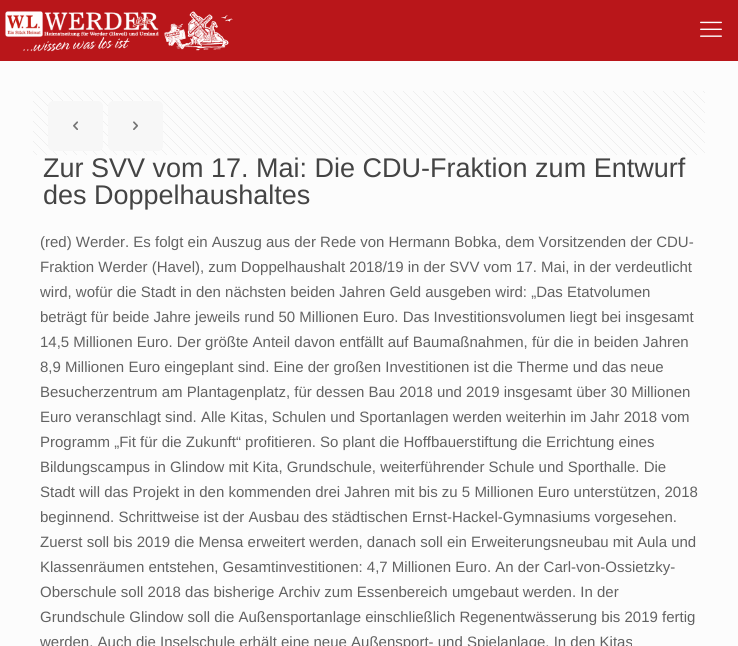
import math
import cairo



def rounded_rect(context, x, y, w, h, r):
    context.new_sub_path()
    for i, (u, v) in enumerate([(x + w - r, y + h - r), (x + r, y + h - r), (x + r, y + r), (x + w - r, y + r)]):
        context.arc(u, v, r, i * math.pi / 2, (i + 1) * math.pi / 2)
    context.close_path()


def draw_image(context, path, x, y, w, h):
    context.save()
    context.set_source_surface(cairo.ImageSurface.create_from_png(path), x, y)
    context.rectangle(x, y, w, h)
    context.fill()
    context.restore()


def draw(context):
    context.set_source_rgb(252 / 255, 252 / 255, 252 / 255)
    context.paint()
    context.set_source_rgb(185 / 255, 22 / 255, 26 / 255)
    context.rectangle(0, 0, 738, 61)
    context.fill()
    draw_image(context, "images/1.png", 5, 11, 228, 41)
    draw_image(context, "images/2.png", 700, 21, 22, 16)
    draw_image(context, "images/3.png", 33, 91, 672, 64)
    context.set_source_rgb(247 / 255, 247 / 255, 247 / 255)
    rounded_rect(context, 48, 101, 55, 50, 5)
    context.fill()
    draw_image(context, "images/4.png", 73, 121, 5, 9)
    rounded_rect(context, 108, 101, 55, 50, 5)
    context.fill()
    draw_image(context, "images/5.png", 133, 121, 5, 9)
    context.select_font_face("Liberation Sans")
    context.set_font_size(27)
    context.set_source_rgb(68 / 255, 68 / 255, 68 / 255)
    context.move_to(43, 177)
    context.show_text("Zur SVV vom 17. Mai: Die CDU-Fraktion zum Entwurf")
    context.move_to(43, 204)
    context.show_text("des Doppelhaushaltes")
    context.set_font_size(15)
    context.set_source_rgb(98 / 255, 98 / 255, 98 / 255)
    context.move_to(40, 247)
    context.show_text("(red) Werder. Es folgt ein Auszug aus der Rede von Hermann Bobka, dem Vorsitzenden der CDU-")
    context.move_to(40, 272)
    context.show_text("Fraktion Werder (Havel), zum Doppelhaushalt 2018/19 in der SVV vom 17. Mai, in der verdeutlicht")
    context.move_to(40, 297)
    context.show_text("wird, wofür die Stadt in den nächsten beiden Jahren Geld ausgeben wird: „Das Etatvolumen")
    context.move_to(40, 322)
    context.show_text("beträgt für beide Jahre jeweils rund 50 Millionen Euro. Das Investitionsvolumen liegt bei insgesamt")
    context.move_to(40, 347)
    context.show_text("14,5 Millionen Euro. Der größte Anteil davon entfällt auf Baumaßnahmen, für die in beiden Jahren")
    context.move_to(40, 372)
    context.show_text("8,9 Millionen Euro eingeplant sind. Eine der großen Investitionen ist die Therme und das neue")
    context.move_to(40, 397)
    context.show_text("Besucherzentrum am Plantagenplatz, für dessen Bau 2018 und 2019 insgesamt über 30 Millionen")
    context.move_to(40, 422)
    context.show_text("Euro veranschlagt sind. Alle Kitas, Schulen und Sportanlagen werden weiterhin im Jahr 2018 vom")
    context.move_to(40, 447)
    context.show_text("Programm „Fit für die Zukunft“ profitieren. So plant die Hoffbauerstiftung die Errichtung eines")
    context.move_to(40, 472)
    context.show_text("Bildungscampus in Glindow mit Kita, Grundschule, weiterführender Schule und Sporthalle. Die")
    context.move_to(40, 497)
    context.show_text("Stadt will das Projekt in den kommenden drei Jahren mit bis zu 5 Millionen Euro unterstützen, 2018")
    context.move_to(40, 522)
    context.show_text("beginnend. Schrittweise ist der Ausbau des städtischen Ernst-Hackel-Gymnasiums vorgesehen.")
    context.move_to(40, 547)
    context.show_text("Zuerst soll bis 2019 die Mensa erweitert werden, danach soll ein Erweiterungsneubau mit Aula und")
    context.move_to(40, 572)
    context.show_text("Klassenräumen entstehen, Gesamtinvestitionen: 4,7 Millionen Euro. An der Carl-von-Ossietzky-")
    context.move_to(40, 597)
    context.show_text("Oberschule soll 2018 das bisherige Archiv zum Essenbereich umgebaut werden. In der")
    context.move_to(40, 622)
    context.show_text("Grundschule Glindow soll die Außensportanlage einschließlich Regenentwässerung bis 2019 fertig")
    context.move_to(40, 647)
    context.show_text("werden. Auch die Inselschule erhält eine neue Außensport- und Spielanlage. In den Kitas")


surface = cairo.ImageSurface(cairo.Format.RGB24, 738, 646)
context = cairo.Context(surface)
options = cairo.FontOptions()
options.set_hint_metrics(cairo.HintMetrics.OFF)
options.set_hint_style(cairo.HintStyle.NONE)
context.set_font_options(options)
context.set_miter_limit(4)
draw(context)
surface.write_to_png("out.png")
